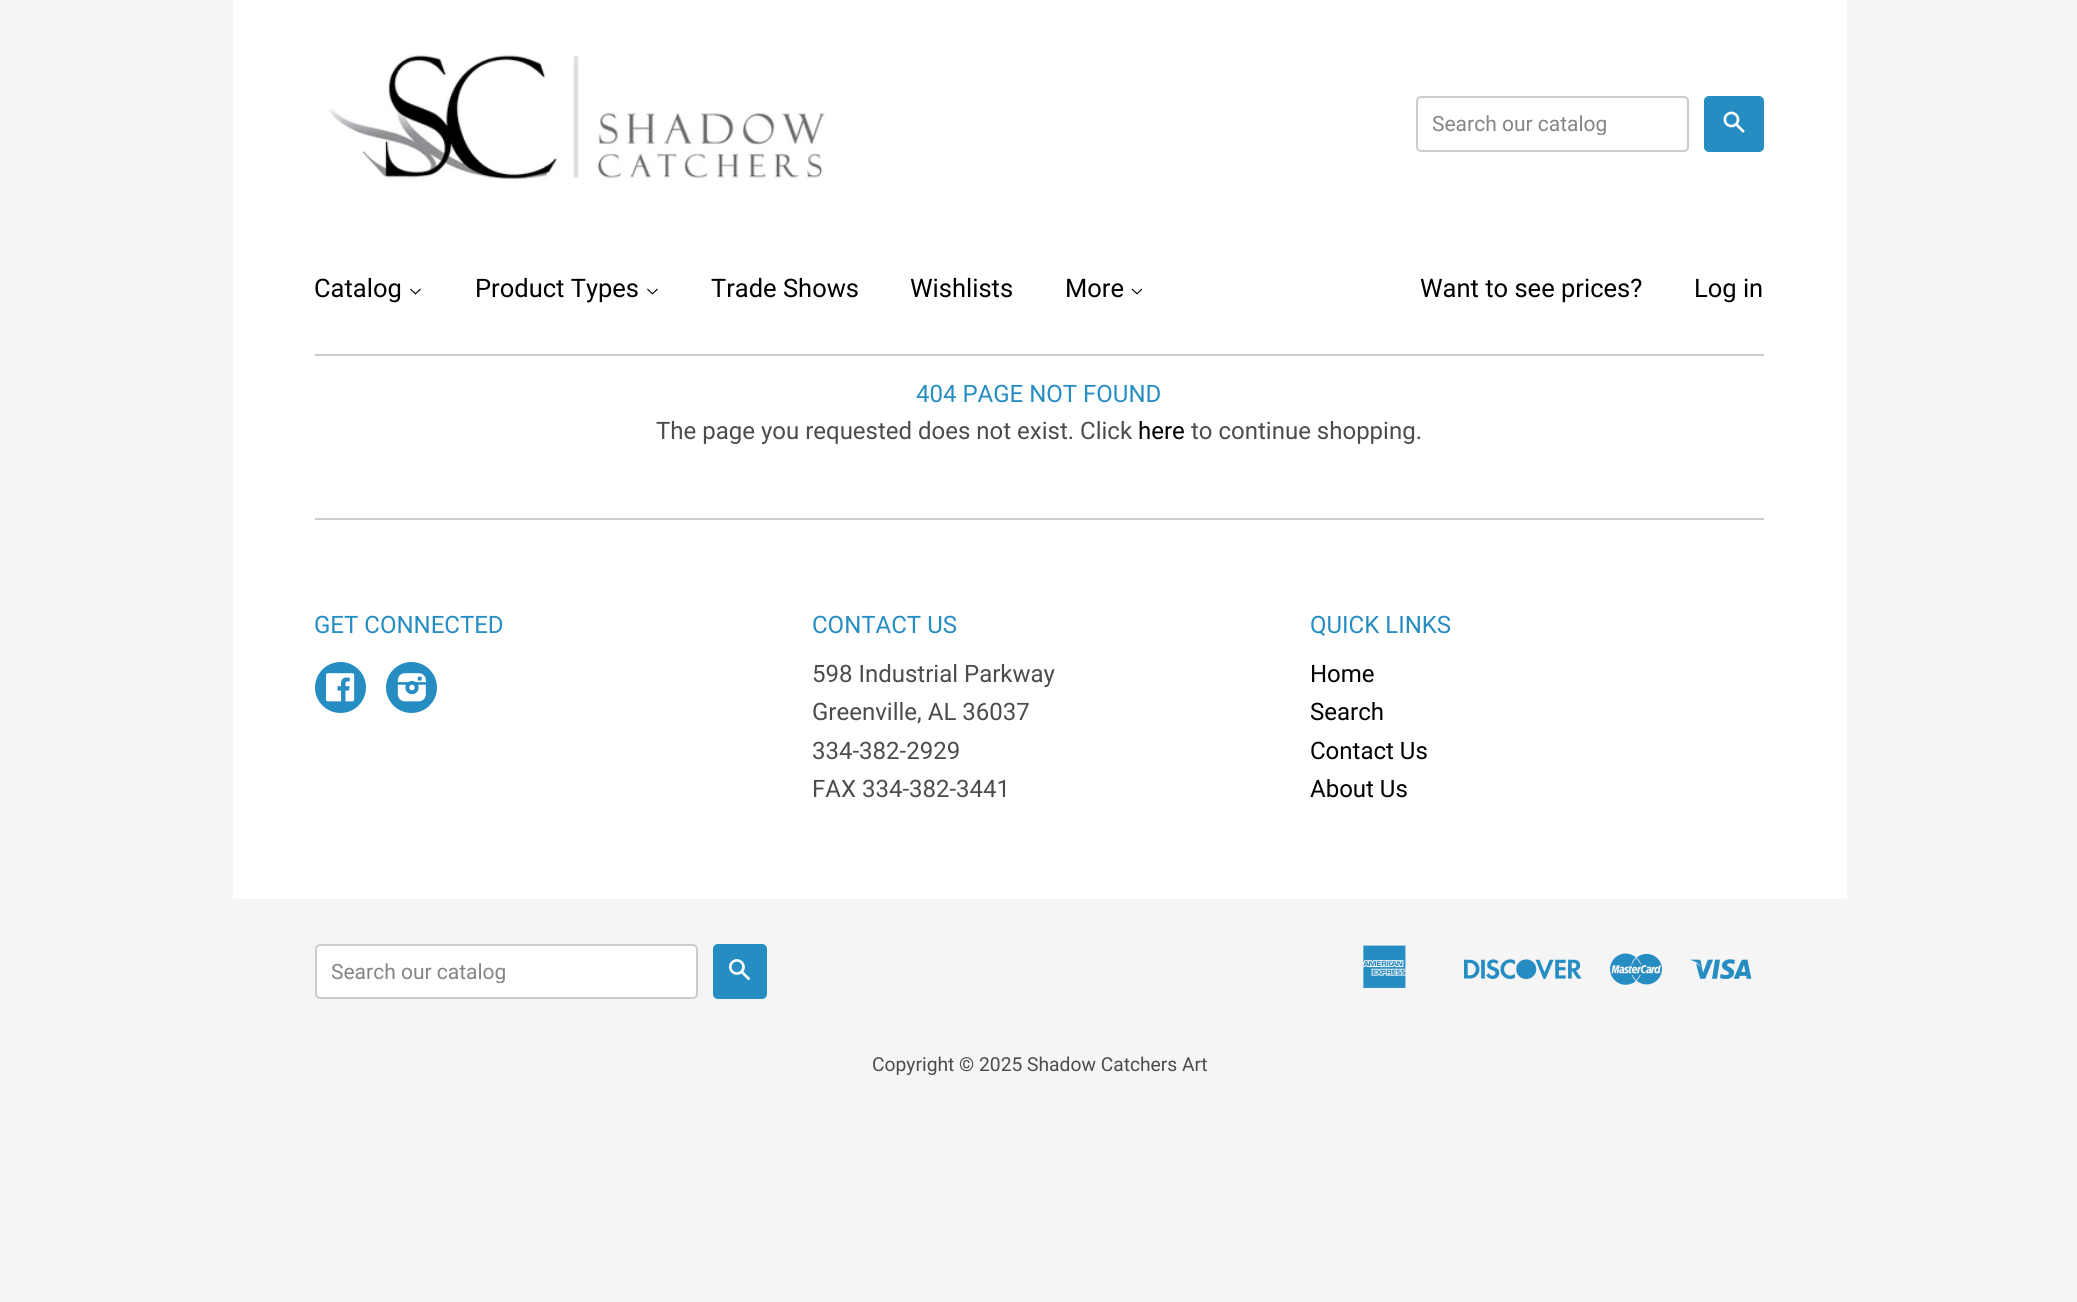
import math
import cairo



def rounded_rect(context, x, y, w, h, r):
    context.new_sub_path()
    for i, (u, v) in enumerate([(x + w - r, y + h - r), (x + r, y + h - r), (x + r, y + r), (x + w - r, y + r)]):
        context.arc(u, v, r, i * math.pi / 2, (i + 1) * math.pi / 2)
    context.close_path()


def draw_image(context, path, x, y, w, h):
    context.save()
    context.set_source_surface(cairo.ImageSurface.create_from_png(path), x, y)
    context.rectangle(x, y, w, h)
    context.fill()
    context.restore()


def draw(context):
    context.set_source_rgb(245 / 255, 245 / 255, 245 / 255)
    context.paint()
    context.set_source_rgb(1, 1, 1)
    context.rectangle(233, 0, 1614, 899)
    context.fill()
    draw_image(context, "images/1.png", 329, 54, 496, 126)
    rounded_rect(context, 1417, 97, 271, 54, 4)
    context.set_source_rgb(204 / 255, 204 / 255, 204 / 255)
    context.stroke()
    context.set_source_rgb(38 / 255, 141 / 255, 195 / 255)
    rounded_rect(context, 1704, 96, 60, 56, 5)
    context.fill()
    draw_image(context, "images/2.png", 1723, 111, 22, 22)
    draw_image(context, "images/3.png", 410, 288, 11, 7)
    draw_image(context, "images/3.png", 647, 288, 11, 7)
    draw_image(context, "images/4.png", 1131, 288, 12, 7)
    context.set_source_rgb(204 / 255, 204 / 255, 204 / 255)
    context.rectangle(315, 354, 1449, 2)
    context.fill()
    context.rectangle(315, 518, 1449, 2)
    context.fill()
    context.set_source_rgb(38 / 255, 141 / 255, 195 / 255)
    context.arc(340.5, 687.5, 25.5, 0, 2 * math.pi)
    context.fill()
    draw_image(context, "images/5.png", 326, 673, 29, 29)
    context.arc(411.5, 687.5, 25.5, 0, 2 * math.pi)
    context.fill()
    draw_image(context, "images/6.png", 397, 673, 29, 29)
    context.set_source_rgb(1, 1, 1)
    rounded_rect(context, 316, 945, 381, 53, 4)
    context.fill_preserve()
    context.set_source_rgb(204 / 255, 204 / 255, 204 / 255)
    context.stroke()
    context.set_source_rgb(38 / 255, 141 / 255, 195 / 255)
    rounded_rect(context, 713, 944, 54, 55, 5)
    context.fill()
    draw_image(context, "images/7.png", 729, 959, 21, 21)
    draw_image(context, "images/8.png", 1363, 945, 43, 43)
    draw_image(context, "images/9.png", 1464, 959, 118, 20)
    draw_image(context, "images/10.png", 1610, 953, 52, 32)
    draw_image(context, "images/11.png", 1690, 959, 62, 20)
    context.save()
    context.rectangle(1433, 111, 234, 24)
    context.clip()
    context.select_font_face("Roboto")
    context.set_font_size(21)
    context.set_source_rgb(133 / 255, 133 / 255, 133 / 255)
    context.move_to(1432, 131)
    context.show_text("Search our catalog")
    context.restore()
    context.select_font_face("Roboto")
    context.set_font_size(25.5)
    context.set_source_rgb(0, 0, 0)
    context.move_to(314, 297)
    context.show_text("Catalog")
    context.move_to(475, 297)
    context.show_text("Product Types")
    context.move_to(711, 297)
    context.show_text("Trade Shows")
    context.move_to(910, 297)
    context.show_text("Wishlists")
    context.move_to(1065, 297)
    context.show_text("More")
    context.move_to(1420, 297)
    context.show_text("Want to see prices?")
    context.move_to(1694, 297)
    context.show_text("Log in")
    context.set_font_size(24)
    context.set_source_rgb(38 / 255, 141 / 255, 195 / 255)
    context.move_to(916, 402)
    context.show_text("404 PAGE NOT FOUND")
    context.set_source_rgb(76 / 255, 76 / 255, 76 / 255)
    context.move_to(656, 439)
    context.show_text("The page you requested does not exist. Click")
    context.set_source_rgb(0, 0, 0)
    context.move_to(1138, 439)
    context.show_text("here")
    context.set_source_rgb(76 / 255, 76 / 255, 76 / 255)
    context.move_to(1191, 439)
    context.show_text("to continue shopping.")
    context.set_source_rgb(38 / 255, 141 / 255, 195 / 255)
    context.move_to(314, 633)
    context.show_text("GET CONNECTED")
    context.move_to(812, 633)
    context.show_text("CONTACT US")
    context.set_source_rgb(76 / 255, 76 / 255, 76 / 255)
    context.move_to(812, 682)
    context.show_text("598 Industrial Parkway")
    context.move_to(812, 720)
    context.show_text("Greenville, AL 36037")
    context.move_to(812, 759)
    context.show_text("334-382-2929")
    context.move_to(812, 797)
    context.show_text("FAX 334-382-3441")
    context.set_source_rgb(38 / 255, 141 / 255, 195 / 255)
    context.move_to(1310, 633)
    context.show_text("QUICK LINKS")
    context.set_source_rgb(0, 0, 0)
    context.move_to(1310, 682)
    context.show_text("Home")
    context.move_to(1310, 720)
    context.show_text("Search")
    context.move_to(1310, 759)
    context.show_text("Contact Us")
    context.move_to(1310, 797)
    context.show_text("About Us")
    context.save()
    context.rectangle(332, 959, 343, 24)
    context.clip()
    context.set_font_size(21)
    context.set_source_rgb(133 / 255, 133 / 255, 133 / 255)
    context.move_to(331, 979)
    context.show_text("Search our catalog")
    context.restore()
    context.set_font_size(19.25)
    context.set_source_rgb(76 / 255, 76 / 255, 76 / 255)
    context.move_to(872, 1071)
    context.show_text("Copyright © 2025 Shadow Catchers Art")


surface = cairo.ImageSurface(cairo.Format.RGB24, 2077, 1302)
context = cairo.Context(surface)
options = cairo.FontOptions()
options.set_hint_metrics(cairo.HintMetrics.OFF)
options.set_hint_style(cairo.HintStyle.NONE)
context.set_font_options(options)
context.set_miter_limit(4)
draw(context)
surface.write_to_png("out.png")
